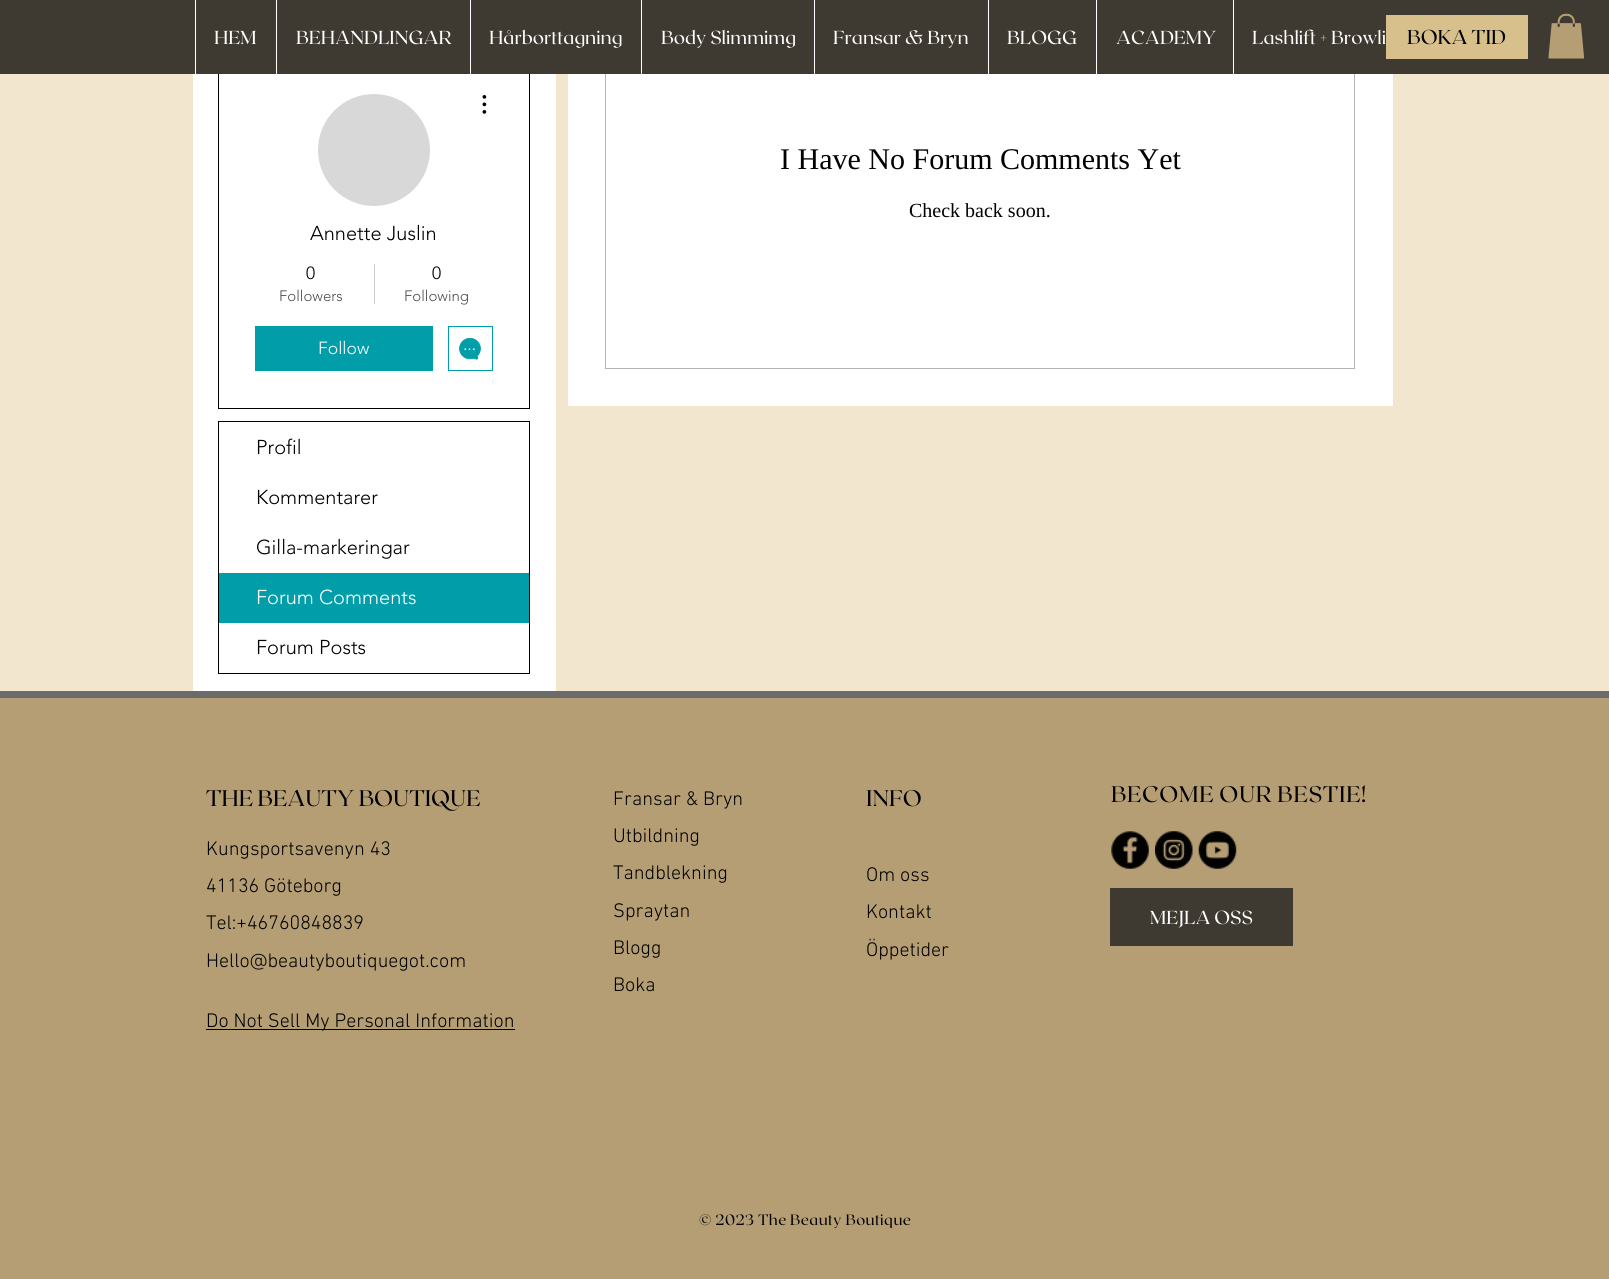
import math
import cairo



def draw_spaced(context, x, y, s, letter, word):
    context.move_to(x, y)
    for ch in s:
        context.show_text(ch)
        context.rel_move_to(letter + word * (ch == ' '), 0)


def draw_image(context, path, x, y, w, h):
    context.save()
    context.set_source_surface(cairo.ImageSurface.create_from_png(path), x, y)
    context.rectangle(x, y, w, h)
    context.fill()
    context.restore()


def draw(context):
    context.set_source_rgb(242 / 255, 231 / 255, 206 / 255)
    context.paint()
    context.set_source_rgb(1, 1, 1)
    context.rectangle(568, 74, 825, 332)
    context.fill()
    context.rectangle(605.5, -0.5, 749, 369)
    context.set_source_rgb(179 / 255, 179 / 255, 179 / 255)
    context.set_line_width(1)
    context.stroke()
    context.set_source_rgb(1, 1, 1)
    context.rectangle(193, 74, 363, 617)
    context.fill()
    context.rectangle(218.5, 56.5, 311, 352)
    context.set_source_rgb(0, 0, 0)
    context.stroke()
    context.set_source_rgb(62 / 255, 58 / 255, 49 / 255)
    context.rectangle(0, 0, 1609, 74)
    context.fill()
    context.set_source_rgb(1, 1, 1)
    context.rectangle(195, 0, 1, 74)
    context.fill()
    context.rectangle(276, 0, 1, 74)
    context.fill()
    context.rectangle(470, 0, 1, 74)
    context.fill()
    context.rectangle(641, 0, 1, 74)
    context.fill()
    context.rectangle(814, 0, 1, 74)
    context.fill()
    context.rectangle(988, 0, 1, 74)
    context.fill()
    context.rectangle(1096, 0, 1, 74)
    context.fill()
    context.rectangle(1233, 0, 1, 74)
    context.fill()
    context.set_source_rgb(216 / 255, 192 / 255, 140 / 255)
    context.rectangle(1386, 15, 142, 44)
    context.fill()
    draw_image(context, "images/1.png", 1548, 13, 37, 46)
    context.set_source_rgb(216 / 255, 216 / 255, 216 / 255)
    context.arc(374, 150, 56, 0, 2 * math.pi)
    context.fill()
    draw_image(context, "images/2.png", 482, 95, 5, 19)
    context.set_source_rgb(204 / 255, 204 / 255, 204 / 255)
    context.rectangle(374, 264, 1, 40)
    context.fill()
    context.set_source_rgb(1 / 255, 158 / 255, 170 / 255)
    context.rectangle(255, 326, 178, 45)
    context.fill()
    context.rectangle(448.5, 326.5, 44, 44)
    context.stroke()
    draw_image(context, "images/3.png", 459, 338, 22, 22)
    context.rectangle(218.5, 421.5, 311, 252)
    context.set_source_rgb(0, 0, 0)
    context.stroke()
    context.set_source_rgb(1 / 255, 158 / 255, 170 / 255)
    context.rectangle(219, 573, 310, 50)
    context.fill()
    context.set_source_rgb(181 / 255, 158 / 255, 116 / 255)
    context.rectangle(0, 698, 1609, 581)
    context.fill()
    context.set_source_rgb(107 / 255, 107 / 255, 106 / 255)
    context.rectangle(0, 691, 1609, 7)
    context.fill()
    context.set_source_rgb(0, 0, 0)
    context.rectangle(206, 1029, 309, 1)
    context.fill()
    draw_image(context, "images/4.png", 1111, 831, 38, 38)
    draw_image(context, "images/5.png", 1155, 831, 38, 38)
    draw_image(context, "images/6.png", 1198, 831, 39, 38)
    context.set_source_rgb(62 / 255, 58 / 255, 49 / 255)
    context.rectangle(1110, 888, 183, 58)
    context.fill()
    context.select_font_face("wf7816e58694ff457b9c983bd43")
    context.set_font_size(18.75)
    context.set_source_rgb(1, 1, 1)
    context.move_to(214, 44)
    context.show_text("HEM")
    context.move_to(296, 44)
    context.show_text("BEHANDLINGAR")
    context.move_to(489, 44)
    context.show_text("Hårborttagning")
    context.move_to(661, 44)
    context.show_text("Body Slimmimg")
    context.move_to(833, 44)
    context.show_text("Fransar & Bryn")
    context.move_to(1007, 44)
    context.show_text("BLOGG")
    context.move_to(1116, 44)
    context.show_text("ACADEMY")
    context.move_to(1252, 44)
    context.show_text("Lashlift + Browli")
    context.set_font_size(20)
    context.set_source_rgb(0, 0, 0)
    context.move_to(1407, 44)
    context.show_text("BOKA TID")
    context.select_font_face("Liberation Serif")
    context.set_font_size(30)
    context.move_to(780, 169)
    context.show_text("I Have No Forum Comments Yet")
    context.set_font_size(20)
    context.move_to(909, 217)
    context.show_text("Check back soon.")
    context.select_font_face("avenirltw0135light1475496 Light")
    context.move_to(310, 240)
    context.show_text("Annette Juslin")
    context.set_font_size(17.5)
    context.move_to(306, 279)
    context.show_text("0")
    context.set_font_size(15)
    context.set_source_rgb(77 / 255, 77 / 255, 77 / 255)
    context.move_to(279, 301)
    context.show_text("Followers")
    context.set_font_size(17.5)
    context.set_source_rgb(0, 0, 0)
    context.move_to(432, 279)
    context.show_text("0")
    context.set_font_size(15)
    context.set_source_rgb(77 / 255, 77 / 255, 77 / 255)
    context.move_to(404, 301)
    context.show_text("Following")
    context.set_font_size(17.5)
    context.set_source_rgb(1, 1, 1)
    context.move_to(318, 354)
    context.show_text("Follow")
    context.set_font_size(20)
    context.set_source_rgb(0, 0, 0)
    context.move_to(256, 454)
    context.show_text("Profil")
    context.move_to(256, 504)
    context.show_text("Kommentarer")
    context.move_to(256, 554)
    context.show_text("Gilla-markeringar")
    context.set_source_rgb(1, 1, 1)
    context.move_to(256, 604)
    context.show_text("Forum Comments")
    context.set_source_rgb(0, 0, 0)
    context.move_to(256, 654)
    context.show_text("Forum Posts")
    context.select_font_face("wf7816e58694ff457b9c983bd43")
    context.set_font_size(22.5)
    context.move_to(206, 806)
    context.show_text("THE BEAUTY BOUTIQUE")
    context.select_font_face("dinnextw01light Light")
    context.set_font_size(20)
    context.move_to(206, 855)
    context.show_text("Kungsportsavenyn 43")
    context.move_to(206, 892)
    context.show_text("41136 Göteborg")
    context.move_to(206, 929)
    context.show_text("Tel:+46760848839")
    context.move_to(206, 967)
    context.show_text("Hello@beautyboutiquegot.com")
    context.move_to(206, 1027)
    context.show_text("Do Not Sell My Personal Information")
    context.move_to(613, 805)
    context.show_text("Fransar & Bryn")
    context.move_to(613, 842)
    context.show_text("Utbildning")
    context.move_to(613, 879)
    context.show_text("Tandblekning")
    context.move_to(613, 917)
    context.show_text("Spraytan")
    context.move_to(613, 954)
    context.show_text("Blogg")
    context.move_to(613, 991)
    context.show_text("Boka")
    context.select_font_face("wf7816e58694ff457b9c983bd43")
    context.set_font_size(22.5)
    context.move_to(866, 806)
    context.show_text("INFO")
    context.select_font_face("dinnextw01light Light")
    context.set_font_size(20)
    context.move_to(866, 881)
    context.show_text("Om oss")
    context.move_to(866, 918)
    context.show_text("Kontakt")
    context.move_to(866, 956)
    context.show_text("Öppetider")
    context.select_font_face("wf7816e58694ff457b9c983bd43")
    context.set_font_size(22.5)
    draw_spaced(context, 1111, 802, "BECOME OUR BESTIE!", 0.7, 0)
    context.set_font_size(18.75)
    context.set_source_rgb(1, 1, 1)
    context.move_to(1150, 924)
    context.show_text("MEJLA OSS")
    context.set_font_size(15)
    context.set_source_rgb(0, 0, 0)
    draw_spaced(context, 699, 1225, "© 2023 The Beauty Boutique", 0.45, 0)


surface = cairo.ImageSurface(cairo.Format.RGB24, 1609, 1279)
context = cairo.Context(surface)
options = cairo.FontOptions()
options.set_hint_metrics(cairo.HintMetrics.OFF)
options.set_hint_style(cairo.HintStyle.NONE)
context.set_font_options(options)
context.set_miter_limit(4)
draw(context)
surface.write_to_png("out.png")
